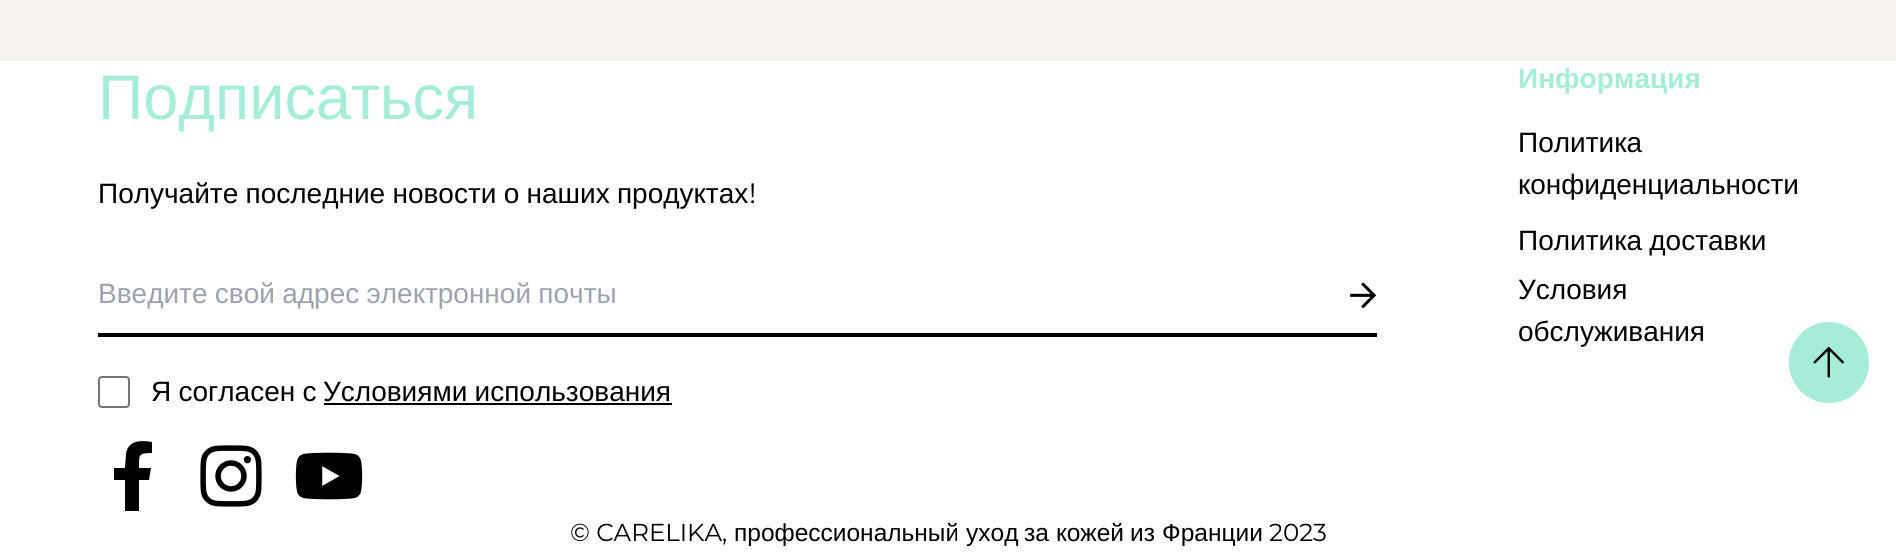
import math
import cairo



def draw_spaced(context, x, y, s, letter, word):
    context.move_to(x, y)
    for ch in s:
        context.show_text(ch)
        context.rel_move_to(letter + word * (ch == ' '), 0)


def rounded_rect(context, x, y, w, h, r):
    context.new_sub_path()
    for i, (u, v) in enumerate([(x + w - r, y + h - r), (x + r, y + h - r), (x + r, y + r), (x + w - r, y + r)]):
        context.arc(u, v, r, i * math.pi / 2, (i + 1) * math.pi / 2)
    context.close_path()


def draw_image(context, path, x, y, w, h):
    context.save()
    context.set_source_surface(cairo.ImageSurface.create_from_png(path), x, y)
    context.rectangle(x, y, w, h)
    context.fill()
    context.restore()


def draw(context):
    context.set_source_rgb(1, 1, 1)
    context.paint()
    context.set_source_rgb(245 / 255, 241 / 255, 237 / 255)
    context.rectangle(0, 0, 1896, 61)
    context.fill()
    context.set_source_rgb(0, 0, 0)
    context.rectangle(98, 333, 1279, 4)
    context.fill()
    draw_image(context, "images/1.png", 1350, 282, 26, 27)
    rounded_rect(context, 99, 377, 30, 30, 3)
    context.set_source_rgb(118 / 255, 118 / 255, 118 / 255)
    context.stroke()
    context.set_source_rgb(0, 0, 0)
    context.rectangle(324, 403, 348, 2)
    context.fill()
    context.new_path()
    context.move_to(149, 480)
    context.line_to(151, 468)
    context.line_to(139, 468)
    context.curve_to(139, 455, 138, 453, 152, 453)
    context.line_to(152, 442)
    context.curve_to(141, 440, 128, 440, 126, 454)
    context.line_to(125, 468)
    context.line_to(114, 468)
    context.line_to(114, 480)
    context.line_to(125, 480)
    context.line_to(125, 511)
    context.line_to(139, 511)
    context.line_to(139, 480)
    context.close_path()
    context.fill()
    draw_image(context, "images/2.png", 200, 445, 62, 62)
    draw_image(context, "images/3.png", 295, 452, 68, 48)
    context.set_source_rgb(165 / 255, 237 / 255, 216 / 255)
    rounded_rect(context, 1790, 323, 78, 79, 39)
    context.fill_preserve()
    context.stroke()
    draw_image(context, "images/4.png", 1813, 346, 31, 32)
    context.select_font_face("Liberation Sans")
    context.set_font_size(63)
    context.move_to(98, 119)
    context.show_text("Подписаться")
    context.set_font_size(28)
    context.set_source_rgb(0, 0, 0)
    draw_spaced(context, 98, 203, "Получайте последние новости о наших продуктах", 0, -0.5)
    context.select_font_face("Montserrat")
    context.move_to(749, 203)
    context.show_text("!")
    context.select_font_face("Liberation Sans")
    context.set_source_rgb(156 / 255, 163 / 255, 175 / 255)
    draw_spaced(context, 98, 303, "Введите свой адрес электронной почты", 0, -0.5)
    context.set_source_rgb(0, 0, 0)
    draw_spaced(context, 151, 401, "Я согласен с", 0, -0.5)
    draw_spaced(context, 323, 401, "Условиями использования", 0, -0.5)
    context.select_font_face("Liberation Sans", cairo.FontSlant.NORMAL, cairo.FontWeight.BOLD)
    context.set_source_rgb(165 / 255, 237 / 255, 216 / 255)
    context.move_to(1518, 88)
    context.show_text("Информация")
    context.select_font_face("Liberation Sans")
    context.set_source_rgb(0, 0, 0)
    context.move_to(1518, 152)
    context.show_text("Политика")
    context.move_to(1518, 194)
    context.show_text("конфиденциальности")
    draw_spaced(context, 1518, 250, "Политика доставки", 0, -0.5)
    context.move_to(1518, 299)
    context.show_text("Условия")
    context.move_to(1518, 341)
    context.show_text("обслуживания")
    context.select_font_face("Montserrat")
    context.set_font_size(24.5)
    context.move_to(570, 541)
    context.show_text("© CARELIKA,")
    context.select_font_face("Liberation Sans")
    context.move_to(734, 541)
    context.show_text("профессиональный")
    context.move_to(966, 541)
    context.show_text("уход")
    context.move_to(1024, 541)
    context.show_text("за")
    context.move_to(1056, 541)
    context.show_text("кожей")
    context.move_to(1130, 541)
    context.show_text("из")
    context.move_to(1162, 541)
    context.show_text("Франции")
    context.select_font_face("Montserrat")
    context.move_to(1269, 541)
    context.show_text("2023")


surface = cairo.ImageSurface(cairo.Format.RGB24, 1896, 553)
context = cairo.Context(surface)
options = cairo.FontOptions()
options.set_hint_metrics(cairo.HintMetrics.OFF)
options.set_hint_style(cairo.HintStyle.NONE)
context.set_font_options(options)
context.set_miter_limit(4)
draw(context)
surface.write_to_png("out.png")
